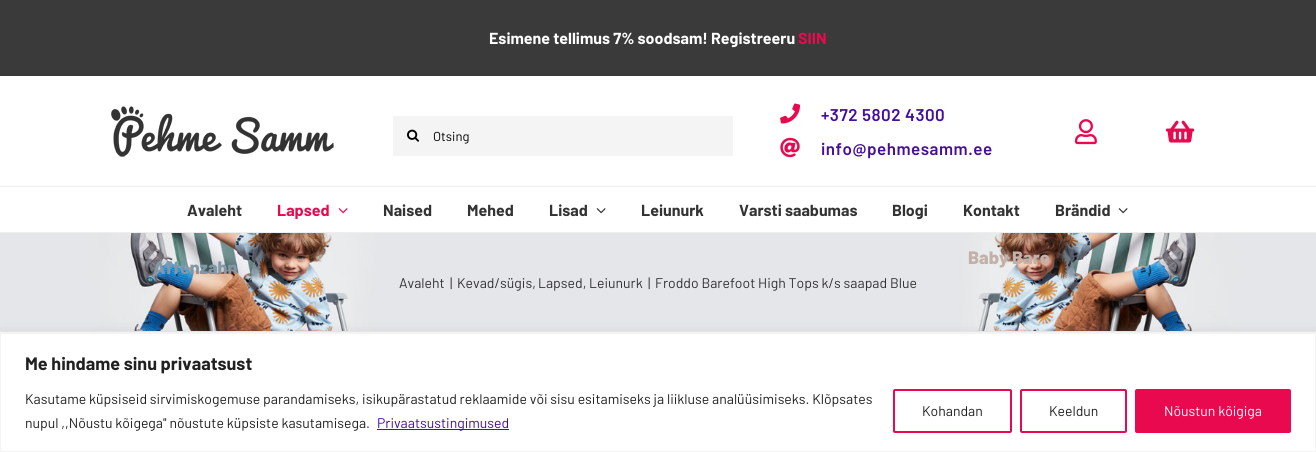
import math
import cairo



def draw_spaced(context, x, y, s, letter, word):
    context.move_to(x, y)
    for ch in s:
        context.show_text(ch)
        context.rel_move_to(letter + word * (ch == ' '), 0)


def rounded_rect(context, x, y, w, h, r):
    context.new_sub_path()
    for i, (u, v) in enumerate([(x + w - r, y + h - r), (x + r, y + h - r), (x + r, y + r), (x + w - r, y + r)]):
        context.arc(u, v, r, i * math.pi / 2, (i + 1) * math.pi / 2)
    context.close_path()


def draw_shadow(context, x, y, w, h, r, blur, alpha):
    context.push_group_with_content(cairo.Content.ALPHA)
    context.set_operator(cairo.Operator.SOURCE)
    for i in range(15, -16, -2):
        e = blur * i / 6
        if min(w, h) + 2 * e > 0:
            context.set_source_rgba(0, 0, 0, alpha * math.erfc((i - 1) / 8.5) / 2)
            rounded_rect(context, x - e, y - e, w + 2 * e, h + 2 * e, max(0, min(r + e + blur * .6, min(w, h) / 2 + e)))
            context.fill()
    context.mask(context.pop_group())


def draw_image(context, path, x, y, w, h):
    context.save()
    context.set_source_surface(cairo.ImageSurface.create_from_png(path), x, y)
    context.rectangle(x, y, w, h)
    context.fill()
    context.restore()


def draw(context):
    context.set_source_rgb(58 / 255, 58 / 255, 58 / 255)
    context.paint()
    context.set_source_rgb(1, 1, 1)
    context.rectangle(0, 76, 1316, 257)
    context.fill()
    context.set_source_rgb(237 / 255, 237 / 255, 237 / 255)
    context.rectangle(0, 186, 1316, 1)
    context.fill()
    draw_image(context, "images/1.png", 111, 106, 223, 51)
    context.set_source_rgb(244 / 255, 244 / 255, 244 / 255)
    context.rectangle(393, 116, 340, 40)
    context.fill()
    draw_image(context, "images/2.png", 407, 129, 12, 13)
    draw_image(context, "images/3.png", 780, 103, 20, 21)
    draw_image(context, "images/4.png", 780, 137, 20, 21)
    draw_image(context, "images/5.png", 1075, 119, 22, 26)
    draw_image(context, "images/6.png", 1166, 120, 29, 23)
    draw_image(context, "images/7.png", 1118, 208, 10, 6)
    draw_image(context, "images/8.png", 338, 208, 10, 6)
    draw_image(context, "images/7.png", 596, 208, 10, 6)
    draw_image(context, "images/9.png", 0, 233, 1316, 98)
    context.set_source_rgb(238 / 255, 238 / 255, 238 / 255)
    context.rectangle(0, 232, 1316, 1)
    context.fill()
    context.rectangle(0, 331, 1316, 1)
    context.fill()
    context.set_source_rgb(172 / 255, 171 / 255, 171 / 255)
    draw_shadow(context, 0, 332, 1316, 119, 0, 5, 0.3)
    context.set_source_rgb(1, 1, 1)
    context.rectangle(0.5, 333.5, 1315, 118)
    context.fill_preserve()
    context.set_source_rgb(244 / 255, 244 / 255, 244 / 255)
    context.set_line_width(1)
    context.stroke()
    context.set_source_rgb(72 / 255, 18 / 255, 154 / 255)
    context.rectangle(377, 429, 132, 1)
    context.fill()
    rounded_rect(context, 894, 390, 117, 42, 1)
    context.set_source_rgb(232 / 255, 9 / 255, 79 / 255)
    context.set_line_width(2)
    context.stroke()
    rounded_rect(context, 1021, 390, 105, 42, 1)
    context.stroke()
    rounded_rect(context, 1136, 390, 154, 42, 1)
    context.fill_preserve()
    context.stroke()
    context.select_font_face("Barlow", cairo.FontSlant.NORMAL, cairo.FontWeight.BOLD)
    context.set_font_size(16)
    context.set_source_rgb(1, 1, 1)
    context.move_to(489, 44)
    context.show_text("Esimene tellimus 7% soodsam! Registreeru")
    context.set_source_rgb(232 / 255, 9 / 255, 79 / 255)
    context.move_to(798, 44)
    context.show_text("SIIN")
    context.select_font_face("Barlow")
    context.set_font_size(13)
    context.set_source_rgb(0, 0, 0)
    context.move_to(433, 141)
    context.show_text("Otsing")
    context.select_font_face("Barlow SemiBold")
    context.set_font_size(17)
    context.set_source_rgb(70 / 255, 15 / 255, 153 / 255)
    draw_spaced(context, 821, 121, "+372 5802 4300", 0.5, 0)
    draw_spaced(context, 821, 155, "info@pehmesamm.ee", 0.5, 0)
    context.select_font_face("Barlow", cairo.FontSlant.NORMAL, cairo.FontWeight.BOLD)
    context.set_font_size(16)
    context.set_source_rgb(51 / 255, 51 / 255, 51 / 255)
    context.move_to(1055, 216)
    context.show_text("Brändid")
    context.select_font_face("Barlow ExtraBold")
    context.set_font_size(18)
    context.set_source_rgb(127 / 255, 151 / 255, 166 / 255)
    context.move_to(153, 274)
    context.show_text("Affenzahn")
    context.set_source_rgb(195 / 255, 176 / 255, 169 / 255)
    context.move_to(968, 264)
    context.show_text("Baby Bare")
    context.select_font_face("Barlow", cairo.FontSlant.NORMAL, cairo.FontWeight.BOLD)
    context.set_font_size(16)
    context.set_source_rgb(51 / 255, 51 / 255, 51 / 255)
    context.move_to(187, 216)
    context.show_text("Avaleht")
    context.set_source_rgb(232 / 255, 9 / 255, 79 / 255)
    context.move_to(277, 216)
    context.show_text("Lapsed")
    context.set_source_rgb(51 / 255, 51 / 255, 51 / 255)
    context.move_to(383, 216)
    context.show_text("Naised")
    context.move_to(467, 216)
    context.show_text("Mehed")
    context.move_to(549, 216)
    context.show_text("Lisad")
    context.move_to(641, 216)
    context.show_text("Leiunurk")
    context.move_to(739, 216)
    context.show_text("Varsti saabumas")
    context.move_to(892, 216)
    context.show_text("Blogi")
    context.move_to(963, 216)
    context.show_text("Kontakt")
    context.select_font_face("Barlow")
    context.set_font_size(14)
    context.move_to(399, 288)
    context.show_text("Avaleht")
    context.move_to(450, 288)
    context.show_text("|")
    context.move_to(457, 288)
    context.show_text("Kevad/sügis,")
    context.move_to(538, 288)
    context.show_text("Lapsed,")
    context.move_to(589, 288)
    context.show_text("Leiunurk")
    context.move_to(648, 288)
    context.show_text("|")
    context.move_to(655, 288)
    context.show_text("Froddo Barefoot High Tops k/s saapad Blue")
    context.select_font_face("Barlow", cairo.FontSlant.NORMAL, cairo.FontWeight.BOLD)
    context.set_font_size(18)
    context.set_source_rgb(33 / 255, 33 / 255, 33 / 255)
    context.move_to(25, 370)
    context.show_text("Me hindame sinu privaatsust")
    context.select_font_face("Barlow")
    context.set_font_size(14)
    context.move_to(25, 404)
    context.show_text("Kasutame küpsiseid sirvimiskogemuse parandamiseks, isikupärastatud reklaamide või sisu esitamiseks ja liikluse analüüsimiseks. Klõpsates")
    context.move_to(25, 428)
    context.show_text("nupul ,,Nõustu kõigega'' nõustute küpsiste kasutamisega.")
    context.set_source_rgb(70 / 255, 15 / 255, 153 / 255)
    context.move_to(377, 428)
    context.show_text("Privaatsustingimused")
    context.set_source_rgb(33 / 255, 33 / 255, 33 / 255)
    context.move_to(922, 416)
    context.show_text("Kohandan")
    context.move_to(1049, 416)
    context.show_text("Keeldun")
    context.set_source_rgb(1, 1, 1)
    context.move_to(1164, 416)
    context.show_text("Nõustun kõigiga")


surface = cairo.ImageSurface(cairo.Format.RGB24, 1316, 452)
context = cairo.Context(surface)
options = cairo.FontOptions()
options.set_hint_metrics(cairo.HintMetrics.OFF)
options.set_hint_style(cairo.HintStyle.NONE)
context.set_font_options(options)
context.set_miter_limit(4)
draw(context)
surface.write_to_png("out.png")
